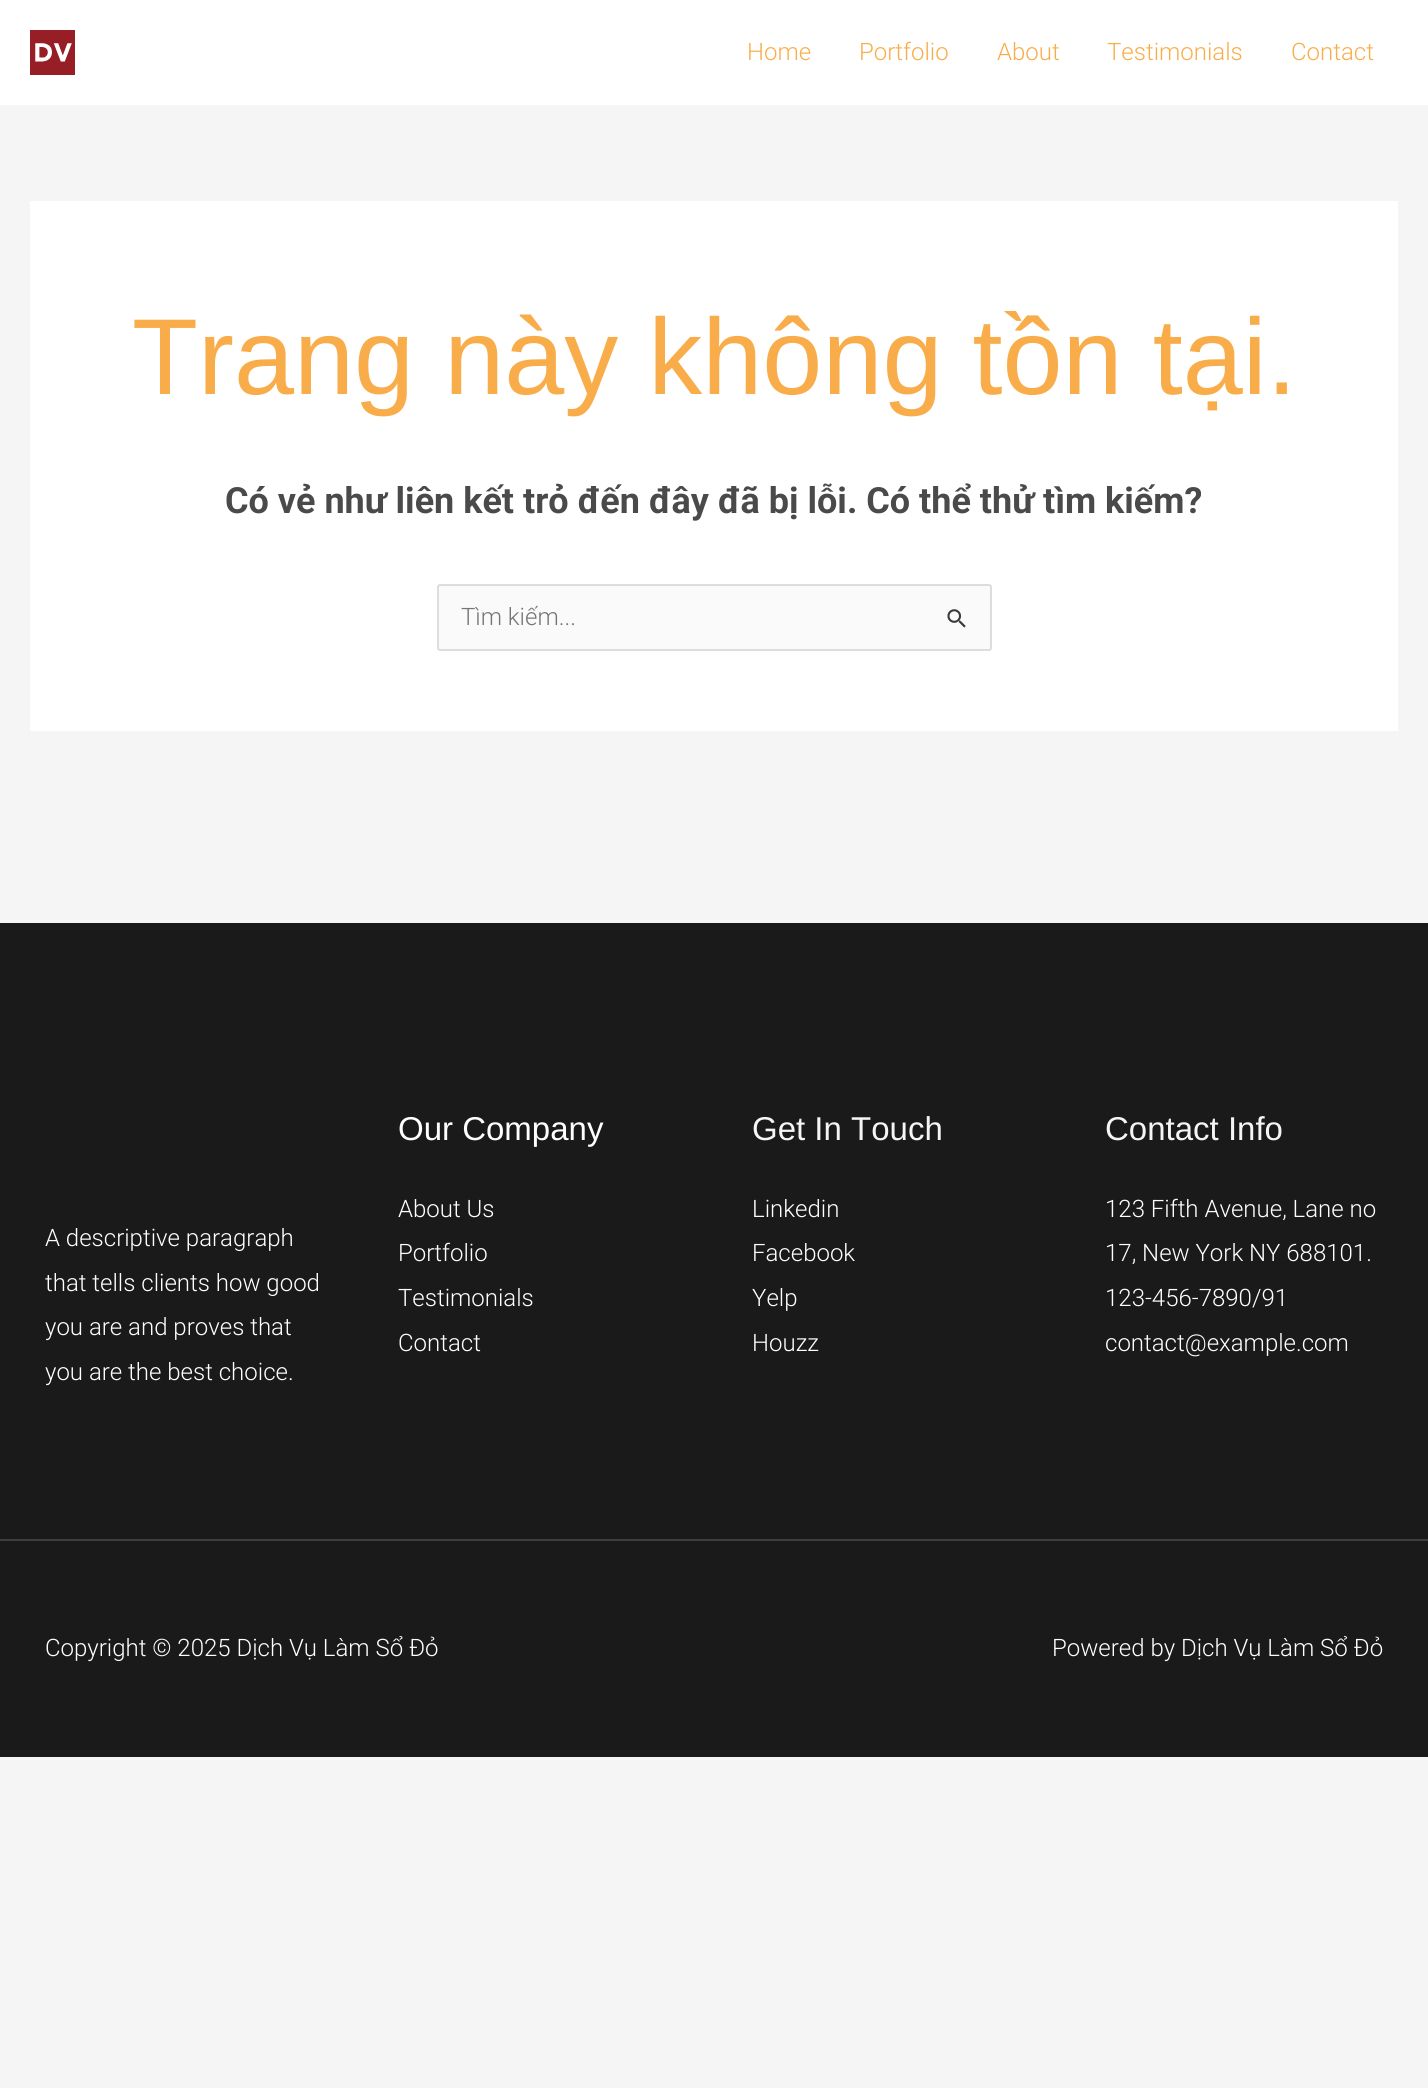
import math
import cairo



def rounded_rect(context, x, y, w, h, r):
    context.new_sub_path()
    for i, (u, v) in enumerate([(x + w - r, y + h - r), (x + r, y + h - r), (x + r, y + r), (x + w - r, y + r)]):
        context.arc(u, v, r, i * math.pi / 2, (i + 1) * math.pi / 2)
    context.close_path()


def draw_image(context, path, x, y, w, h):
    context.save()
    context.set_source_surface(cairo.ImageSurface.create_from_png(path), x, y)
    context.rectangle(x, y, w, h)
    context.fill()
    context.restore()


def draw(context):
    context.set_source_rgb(245 / 255, 245 / 255, 245 / 255)
    context.paint()
    context.set_source_rgb(1, 1, 1)
    context.rectangle(0, 0, 1428, 105)
    context.fill()
    draw_image(context, "images/1.png", 30, 30, 45, 45)
    context.rectangle(30, 201, 1368, 530)
    context.fill()
    context.set_source_rgb(250 / 255, 250 / 255, 250 / 255)
    rounded_rect(context, 438, 585, 553, 65, 2)
    context.fill_preserve()
    context.set_source_rgb(221 / 255, 221 / 255, 221 / 255)
    context.stroke()
    draw_image(context, "images/2.png", 947, 609, 19, 19)
    context.set_source_rgb(26 / 255, 26 / 255, 26 / 255)
    context.rectangle(0, 923, 1428, 834)
    context.fill()
    context.set_source_rgb(62 / 255, 62 / 255, 62 / 255)
    context.rectangle(0, 1539, 1428, 2)
    context.fill()
    context.select_font_face("Roboto Light")
    context.set_font_size(24)
    context.set_source_rgb(249 / 255, 173 / 255, 74 / 255)
    context.move_to(747, 60)
    context.show_text("Home")
    context.move_to(859, 60)
    context.show_text("Portfolio")
    context.move_to(997, 60)
    context.show_text("About")
    context.move_to(1107, 60)
    context.show_text("Testimonials")
    context.move_to(1291, 60)
    context.show_text("Contact")
    context.select_font_face("Liberation Sans")
    context.set_font_size(108)
    context.move_to(132, 394)
    context.show_text("Trang này không tồn tại.")
    context.select_font_face("Roboto", cairo.FontSlant.NORMAL, cairo.FontWeight.BOLD)
    context.set_font_size(36)
    context.set_source_rgb(74 / 255, 74 / 255, 74 / 255)
    context.move_to(225, 513)
    context.show_text("Có vẻ như liên kết trỏ đến đây đã bị lỗi. Có thể thử tìm kiếm?")
    context.select_font_face("Roboto Light")
    context.set_font_size(24)
    context.set_source_rgb(117 / 255, 117 / 255, 117 / 255)
    context.move_to(461, 625)
    context.show_text("Tìm kiếm...")
    context.set_source_rgb(1, 1, 1)
    context.move_to(45, 1246)
    context.show_text("A descriptive paragraph")
    context.move_to(45, 1291)
    context.show_text("that tells clients how good")
    context.move_to(45, 1335)
    context.show_text("you are and proves that")
    context.move_to(45, 1380)
    context.show_text("you are the best choice.")
    context.select_font_face("Liberation Sans")
    context.set_font_size(33)
    context.move_to(398, 1140)
    context.show_text("Our Company")
    context.select_font_face("Roboto Light")
    context.set_font_size(24)
    context.move_to(398, 1217)
    context.show_text("About Us")
    context.move_to(398, 1261)
    context.show_text("Portfolio")
    context.move_to(398, 1306)
    context.show_text("Testimonials")
    context.move_to(398, 1351)
    context.show_text("Contact")
    context.select_font_face("Liberation Sans")
    context.set_font_size(33)
    context.set_source_rgb(245 / 255, 245 / 255, 245 / 255)
    context.move_to(752, 1140)
    context.show_text("Get In Touch")
    context.select_font_face("Roboto Light")
    context.set_font_size(24)
    context.set_source_rgb(1, 1, 1)
    context.move_to(752, 1217)
    context.show_text("Linkedin")
    context.move_to(752, 1261)
    context.show_text("Facebook")
    context.move_to(752, 1306)
    context.show_text("Yelp")
    context.move_to(752, 1351)
    context.show_text("Houzz")
    context.select_font_face("Liberation Sans")
    context.set_font_size(33)
    context.set_source_rgb(245 / 255, 245 / 255, 245 / 255)
    context.move_to(1105, 1140)
    context.show_text("Contact Info")
    context.select_font_face("Roboto Light")
    context.set_font_size(24)
    context.set_source_rgb(1, 1, 1)
    context.move_to(1105, 1217)
    context.show_text("123 Fifth Avenue, Lane no")
    context.move_to(1105, 1261)
    context.show_text("17, New York NY 688101.")
    context.move_to(1105, 1306)
    context.show_text("123-456-7890/91")
    context.move_to(1105, 1351)
    context.show_text("contact@example.com")
    context.move_to(45, 1656)
    context.show_text("Copyright © 2025 Dịch Vụ Làm Sổ Đỏ")
    context.move_to(1052, 1656)
    context.show_text("Powered by Dịch Vụ Làm Sổ Đỏ")


surface = cairo.ImageSurface(cairo.Format.RGB24, 1428, 2088)
context = cairo.Context(surface)
options = cairo.FontOptions()
options.set_hint_metrics(cairo.HintMetrics.OFF)
options.set_hint_style(cairo.HintStyle.NONE)
context.set_font_options(options)
context.set_miter_limit(4)
draw(context)
surface.write_to_png("out.png")
